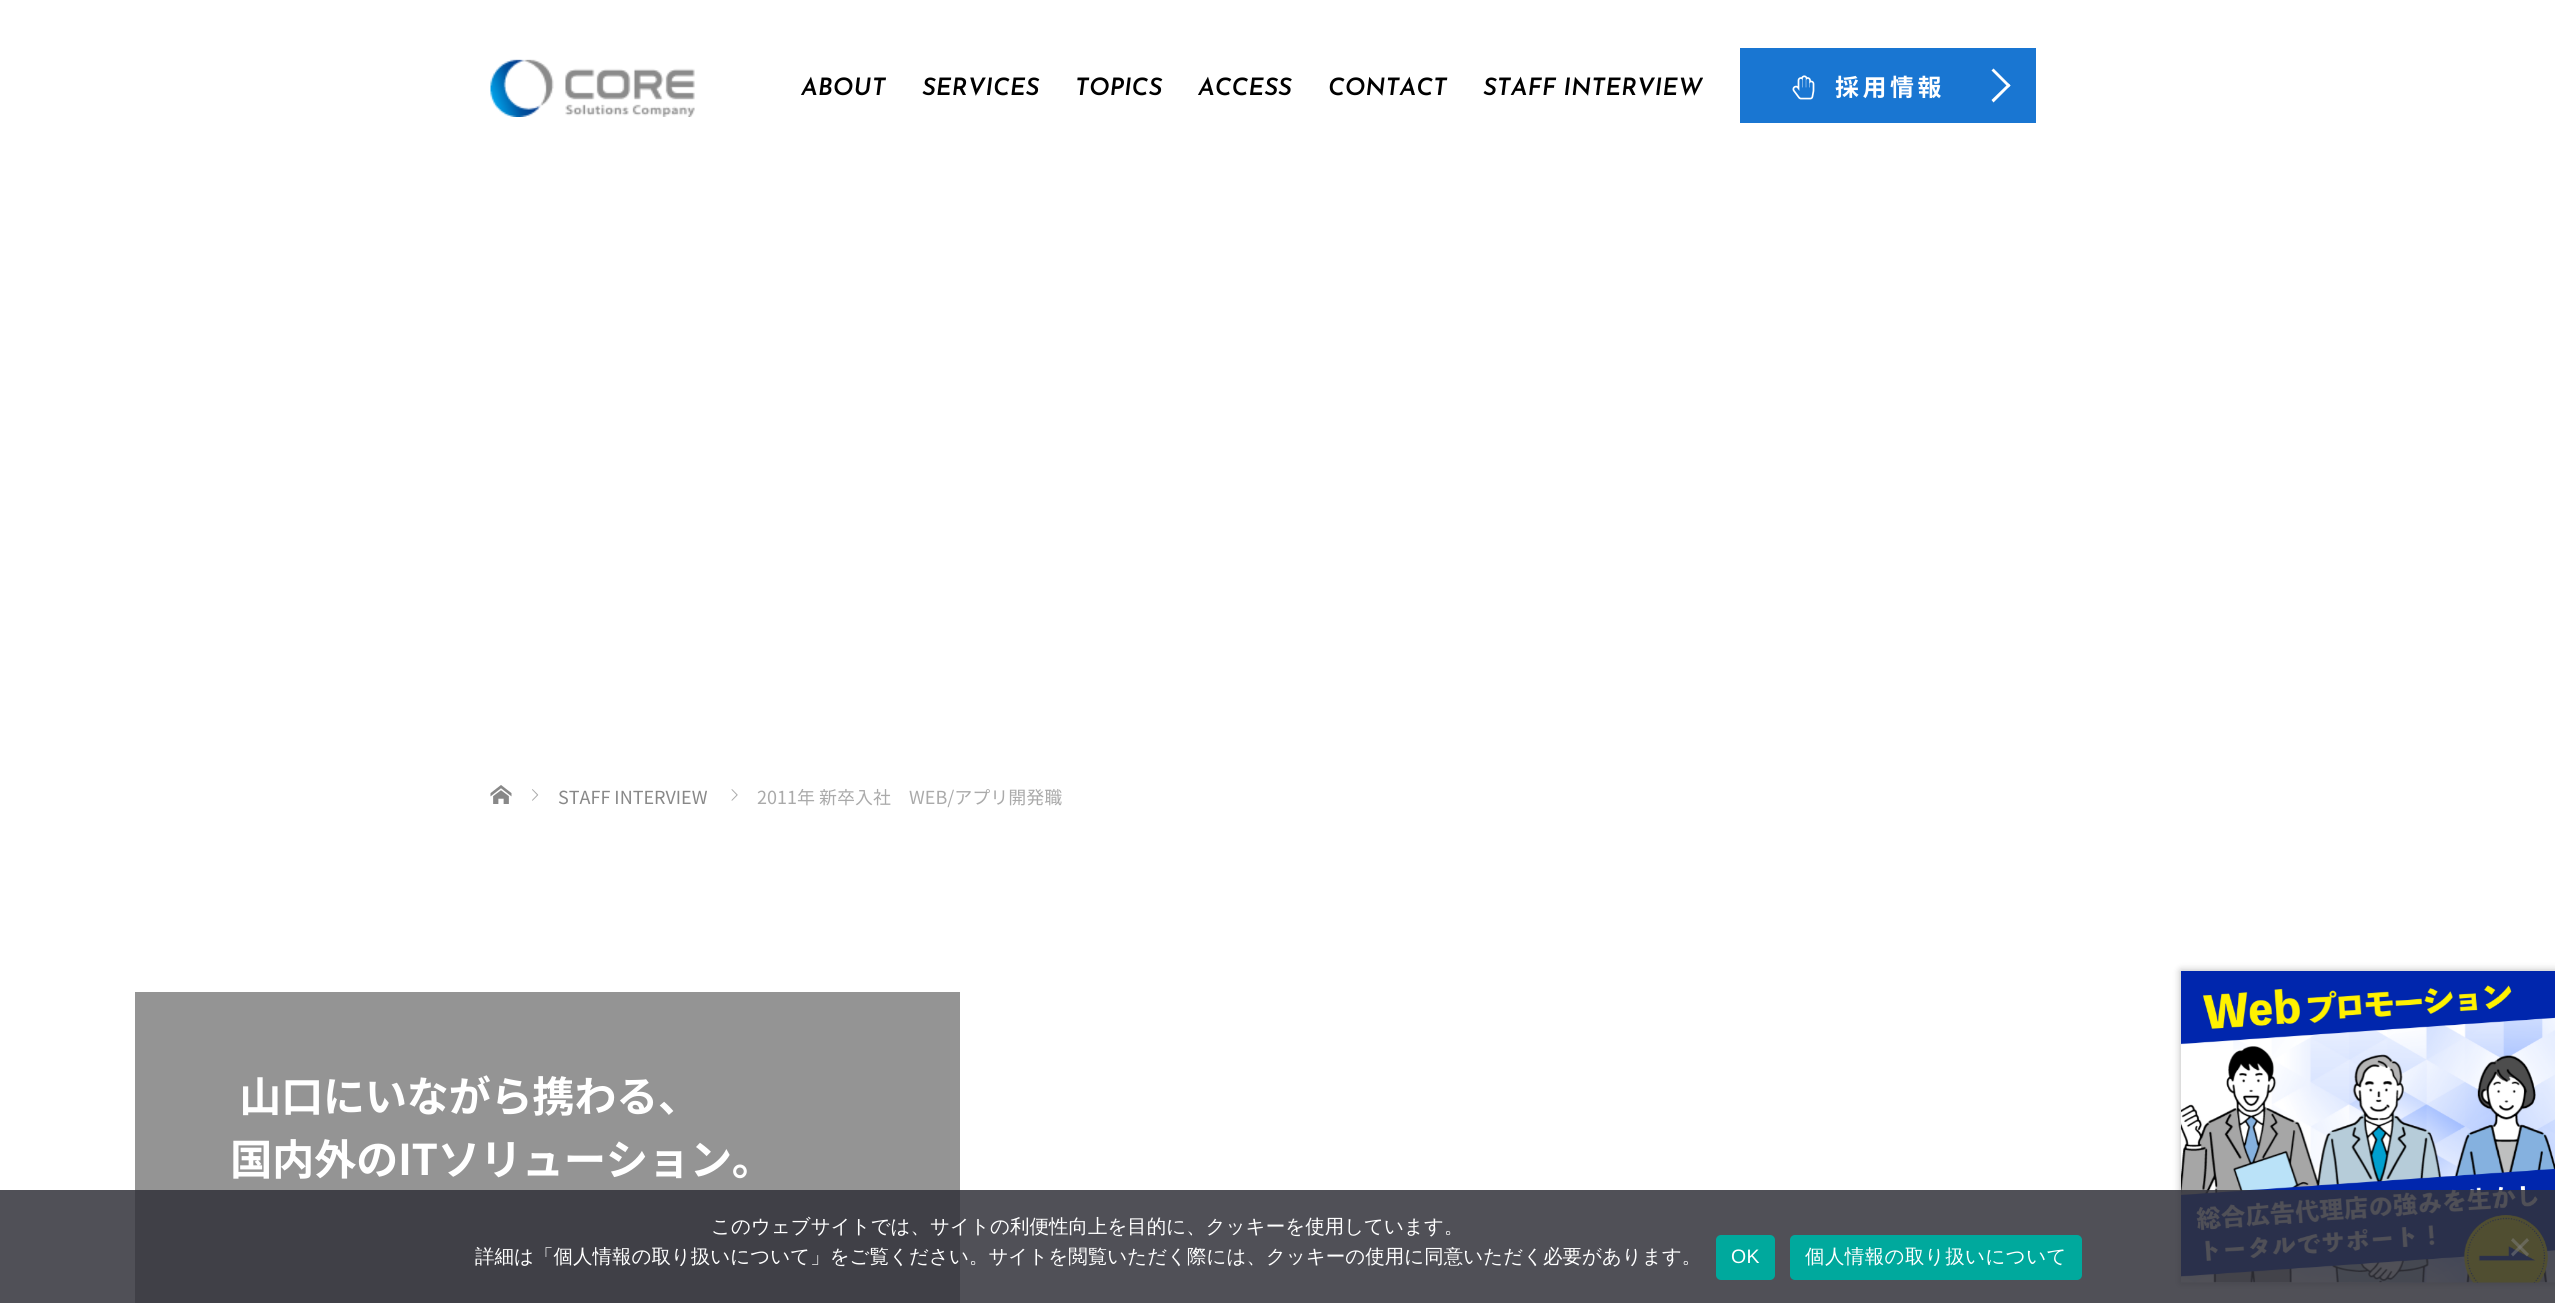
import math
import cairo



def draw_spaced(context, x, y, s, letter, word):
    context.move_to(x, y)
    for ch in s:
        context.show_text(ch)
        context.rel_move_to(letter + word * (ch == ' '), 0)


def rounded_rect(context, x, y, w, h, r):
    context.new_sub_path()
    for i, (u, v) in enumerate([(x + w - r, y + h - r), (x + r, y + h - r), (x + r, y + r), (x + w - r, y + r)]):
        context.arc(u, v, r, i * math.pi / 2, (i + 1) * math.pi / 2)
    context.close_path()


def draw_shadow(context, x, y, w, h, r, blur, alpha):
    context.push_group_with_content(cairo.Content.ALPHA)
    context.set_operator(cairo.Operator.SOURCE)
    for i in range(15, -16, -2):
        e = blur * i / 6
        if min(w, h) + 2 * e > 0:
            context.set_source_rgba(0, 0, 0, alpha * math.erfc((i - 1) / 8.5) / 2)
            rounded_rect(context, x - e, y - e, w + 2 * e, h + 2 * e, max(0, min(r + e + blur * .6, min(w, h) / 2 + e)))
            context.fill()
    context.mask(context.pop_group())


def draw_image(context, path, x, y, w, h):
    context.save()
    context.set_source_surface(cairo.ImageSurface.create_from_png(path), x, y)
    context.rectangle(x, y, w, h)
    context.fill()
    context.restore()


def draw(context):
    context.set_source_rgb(1, 1, 1)
    context.paint()
    draw_image(context, "images/1.png", 490, 59, 205, 58)
    context.set_source_rgb(25 / 255, 118 / 255, 210 / 255)
    context.rectangle(1740, 48, 296, 75)
    context.fill()
    draw_image(context, "images/2.png", 1792, 75, 23, 25)
    context.set_source_rgb(1, 1, 1)
    context.new_path()
    context.move_to(1993.5, 68.5)
    context.line_to(2010.5, 85.5)
    context.line_to(2008.5, 87.5)
    context.line_to(1991.5, 70.5)
    context.close_path()
    context.fill()
    context.new_path()
    context.move_to(2008.5, 83.5)
    context.line_to(2010.5, 85.5)
    context.line_to(1993.5, 102.5)
    context.line_to(1991.5, 100)
    context.close_path()
    context.fill()
    draw_image(context, "images/3.png", 490, 785, 22, 19)
    draw_image(context, "images/4.png", 532, 789, 7, 12)
    draw_image(context, "images/5.png", 731, 789, 7, 12)
    context.set_source_rgb(148 / 255, 148 / 255, 148 / 255)
    context.rectangle(135, 992, 825, 311)
    context.fill()
    context.set_source_rgb(0, 0, 0)
    draw_shadow(context, 2181, 971, 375, 312, 0, 4, 0.3)
    draw_image(context, "images/6.png", 2181, 971, 374, 312)
    context.set_source_rgba(50 / 255, 50 / 255, 58 / 255, 0.85)
    context.rectangle(0, 1190, 2555, 113)
    context.fill()
    context.set_source_rgb(0, 169 / 255, 157 / 255)
    rounded_rect(context, 1716, 1235, 59, 45, 5)
    context.fill()
    rounded_rect(context, 1790, 1235, 292, 45, 5)
    context.fill()
    context.set_source_rgba(128 / 255, 128 / 255, 128 / 255, 0.5)
    context.new_path()
    context.move_to(2527, 1238)
    context.line_to(2529, 1240.5)
    context.line_to(2513, 1256.5)
    context.line_to(2511, 1254)
    context.close_path()
    context.fill()
    context.new_path()
    context.move_to(2511, 1240.5)
    context.line_to(2513, 1238)
    context.line_to(2529, 1254)
    context.line_to(2527, 1256.5)
    context.close_path()
    context.fill()
    context.select_font_face("Josefin Sans SemiBold", cairo.FontSlant.ITALIC)
    context.set_font_size(24)
    context.set_source_rgb(0, 0, 0)
    context.move_to(801, 95)
    context.show_text("ABOUT")
    context.move_to(922, 95)
    context.show_text("SERVICES")
    context.move_to(1075, 95)
    context.show_text("TOPICS")
    context.move_to(1198, 95)
    context.show_text("ACCESS")
    context.move_to(1328, 95)
    context.show_text("CONTACT")
    context.move_to(1483, 95)
    context.show_text("STAFF INTERVIEW")
    context.select_font_face("Noto Sans JP", cairo.FontSlant.NORMAL, cairo.FontWeight.BOLD)
    context.set_source_rgb(1, 1, 1)
    draw_spaced(context, 1835, 96, "採用情報", 3.5, 0)
    context.select_font_face("Noto Sans JP")
    context.set_font_size(18)
    context.set_source_rgb(136 / 255, 136 / 255, 136 / 255)
    context.move_to(558, 804)
    context.show_text("STAFF INTERVIEW")
    context.set_source_rgb(170 / 255, 170 / 255, 170 / 255)
    context.move_to(757, 804)
    context.show_text("2011年 新卒入社")
    context.move_to(909, 804)
    context.show_text("WEB/アプリ開発職")
    context.select_font_face("Noto Sans JP", cairo.FontSlant.NORMAL, cairo.FontWeight.BOLD)
    context.set_font_size(42.4)
    context.set_source_rgb(1, 1, 1)
    draw_spaced(context, 239, 1112, "山口にいながら携わる、", -0.5, 0)
    draw_spaced(context, 230, 1175, "国内外のITソリューション。", -0.4, 0)
    context.select_font_face("WenQuanYi Zen Hei Medium")
    context.set_font_size(19.5)
    context.move_to(711, 1233)
    context.show_text("このウェブサイトでは、サイトの利便性向上を目的に、クッキーを使用しています。")
    context.move_to(475, 1263)
    context.show_text("詳細は「個人情報の取り扱いについて」をご覧ください。サイトを閲覧いただく際には、クッキーの使用に同意いただく必要があります。")
    context.select_font_face("Liberation Sans")
    draw_spaced(context, 1731, 1263, "OK", 0.4, 0)
    context.select_font_face("WenQuanYi Zen Hei Medium")
    draw_spaced(context, 1805, 1263, "個人情報の取り扱いについて", 0.4, 0)


surface = cairo.ImageSurface(cairo.Format.RGB24, 2555, 1303)
context = cairo.Context(surface)
options = cairo.FontOptions()
options.set_hint_metrics(cairo.HintMetrics.OFF)
options.set_hint_style(cairo.HintStyle.NONE)
context.set_font_options(options)
context.set_miter_limit(4)
draw(context)
surface.write_to_png("out.png")
